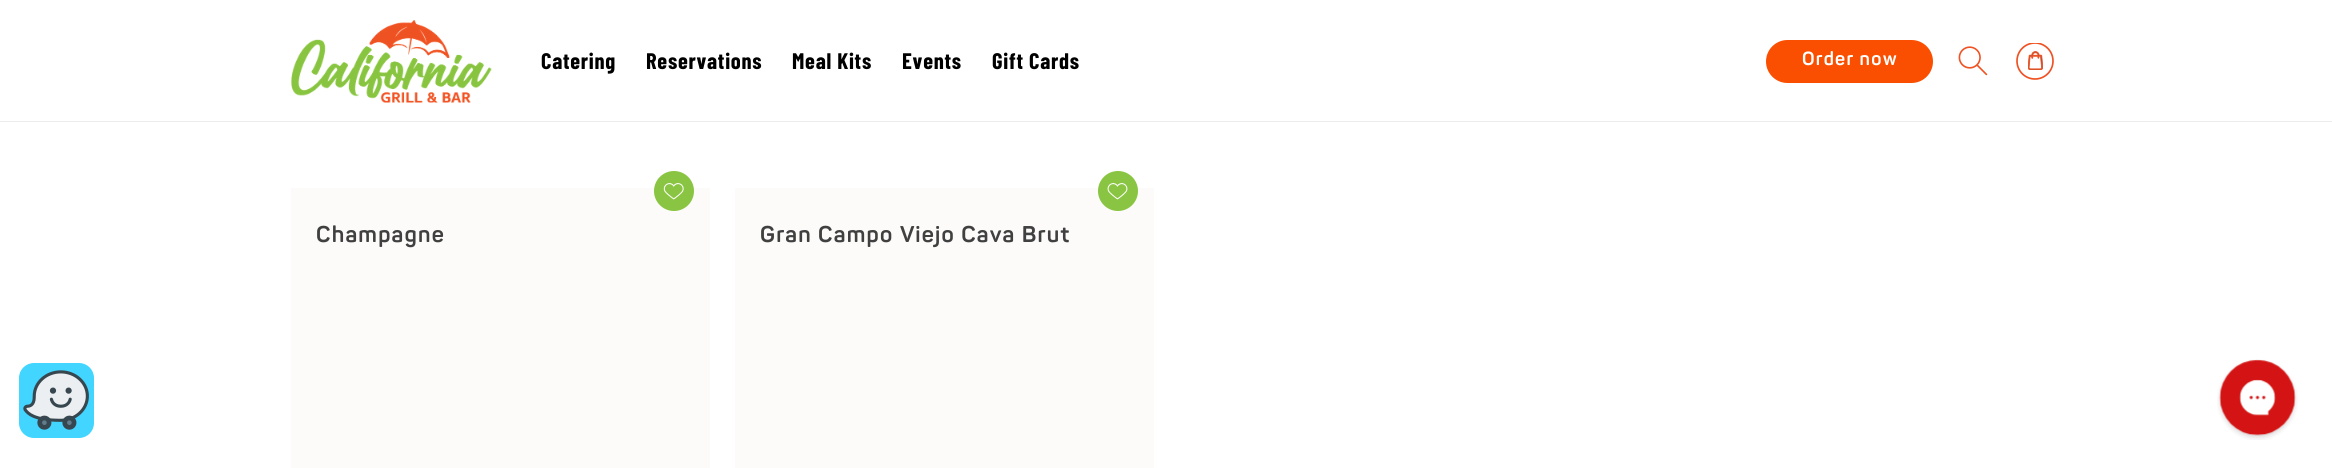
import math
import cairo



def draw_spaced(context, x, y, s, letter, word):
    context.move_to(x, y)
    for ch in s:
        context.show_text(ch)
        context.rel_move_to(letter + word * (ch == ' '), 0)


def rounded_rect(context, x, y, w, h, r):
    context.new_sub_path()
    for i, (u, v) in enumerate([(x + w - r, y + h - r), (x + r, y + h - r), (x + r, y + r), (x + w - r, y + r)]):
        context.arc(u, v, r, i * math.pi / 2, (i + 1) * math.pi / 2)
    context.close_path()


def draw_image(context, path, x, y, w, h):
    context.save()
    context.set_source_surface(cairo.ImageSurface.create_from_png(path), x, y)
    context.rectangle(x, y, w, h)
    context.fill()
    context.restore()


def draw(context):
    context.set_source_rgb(1, 1, 1)
    context.paint()
    context.set_source_rgb(236 / 255, 236 / 255, 236 / 255)
    context.rectangle(0, 121, 2332, 1)
    context.fill()
    draw_image(context, "images/1.png", 291, 20, 201, 83)
    context.set_source_rgb(250 / 255, 79 / 255, 0)
    rounded_rect(context, 1766, 40, 167, 43, 21.5)
    context.fill()
    draw_image(context, "images/2.png", 1958, 46, 30, 30)
    draw_image(context, "images/3.png", 2016, 43, 38, 37)
    context.set_source_rgb(252 / 255, 251 / 255, 250 / 255)
    context.rectangle(291, 188, 419, 280)
    context.fill()
    context.set_source_rgb(137 / 255, 197 / 255, 66 / 255)
    context.arc(674, 191, 20, 0, 2 * math.pi)
    context.fill()
    draw_image(context, "images/4.png", 663, 183, 21, 17)
    context.set_source_rgb(252 / 255, 251 / 255, 250 / 255)
    context.rectangle(735, 188, 419, 280)
    context.fill()
    context.set_source_rgb(137 / 255, 197 / 255, 66 / 255)
    context.arc(1118, 191, 20, 0, 2 * math.pi)
    context.fill()
    draw_image(context, "images/5.png", 1107, 183, 21, 17)
    draw_image(context, "images/6.png", 19, 363, 75, 75)
    draw_image(context, "images/7.png", 2217, 359, 81, 81)
    context.select_font_face("Barlow Condensed", cairo.FontSlant.NORMAL, cairo.FontWeight.BOLD)
    context.set_font_size(22.5)
    context.set_source_rgb(0, 0, 0)
    draw_spaced(context, 541, 69, "Catering", 0.75, 0)
    draw_spaced(context, 646, 69, "Reservations", 0.75, 0)
    draw_spaced(context, 792, 69, "Meal Kits", 0.75, 0)
    draw_spaced(context, 902, 69, "Events", 0.75, 0)
    draw_spaced(context, 992, 69, "Gift Cards", 0.75, 0)
    context.select_font_face("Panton", cairo.FontSlant.NORMAL, cairo.FontWeight.BOLD)
    context.set_font_size(18.75)
    context.set_source_rgb(1, 1, 1)
    draw_spaced(context, 1802, 65, "Order now", 1.25, 0)
    context.set_font_size(22.5)
    context.set_source_rgb(64 / 255, 64 / 255, 64 / 255)
    draw_spaced(context, 316, 242, "Champagne", 1.25, 0)
    draw_spaced(context, 760, 242, "Gran Campo Viejo Cava Brut", 1.25, 0)


surface = cairo.ImageSurface(cairo.Format.RGB24, 2332, 468)
context = cairo.Context(surface)
options = cairo.FontOptions()
options.set_hint_metrics(cairo.HintMetrics.OFF)
options.set_hint_style(cairo.HintStyle.NONE)
context.set_font_options(options)
context.set_miter_limit(4)
draw(context)
surface.write_to_png("out.png")
